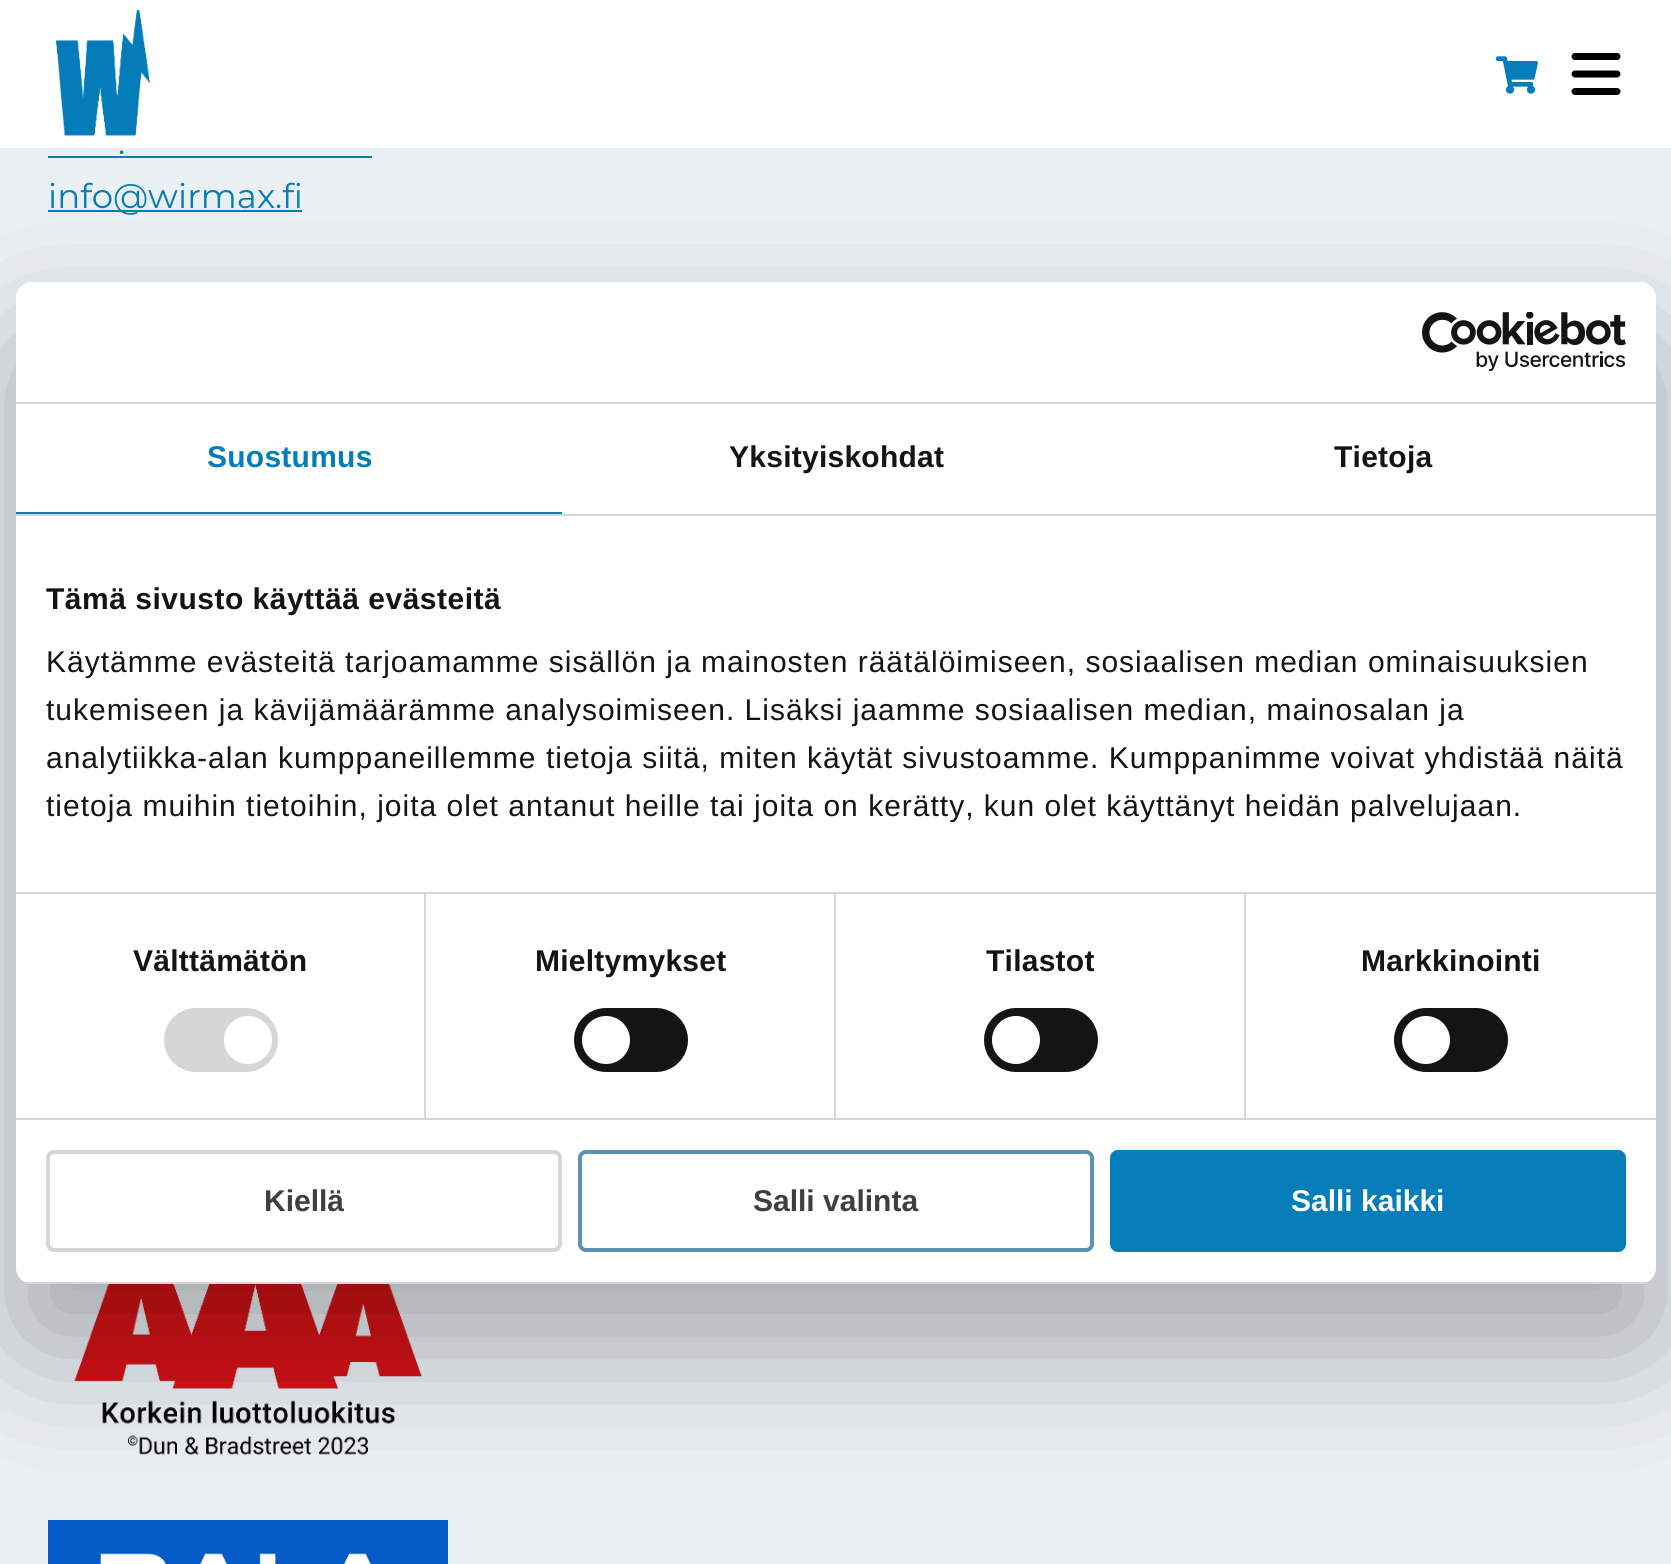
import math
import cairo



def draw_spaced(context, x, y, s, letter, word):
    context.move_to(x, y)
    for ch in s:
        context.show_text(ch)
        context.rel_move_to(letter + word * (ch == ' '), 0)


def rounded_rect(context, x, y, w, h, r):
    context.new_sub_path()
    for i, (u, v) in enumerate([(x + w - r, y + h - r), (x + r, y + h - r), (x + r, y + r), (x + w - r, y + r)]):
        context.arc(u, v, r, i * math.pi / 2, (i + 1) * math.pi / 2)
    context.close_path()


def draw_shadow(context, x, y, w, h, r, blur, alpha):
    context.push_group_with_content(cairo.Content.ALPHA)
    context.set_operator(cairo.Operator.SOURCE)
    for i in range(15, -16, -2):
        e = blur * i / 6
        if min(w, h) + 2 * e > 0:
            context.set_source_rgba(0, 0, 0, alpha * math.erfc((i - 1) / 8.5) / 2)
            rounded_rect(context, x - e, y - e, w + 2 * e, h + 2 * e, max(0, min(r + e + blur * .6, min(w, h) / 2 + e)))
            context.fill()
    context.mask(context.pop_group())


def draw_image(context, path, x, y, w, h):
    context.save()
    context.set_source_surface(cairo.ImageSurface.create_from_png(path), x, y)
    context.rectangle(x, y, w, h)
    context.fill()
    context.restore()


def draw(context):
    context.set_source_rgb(235 / 255, 240 / 255, 245 / 255)
    context.paint()
    context.set_source_rgb(1, 1, 1)
    context.rectangle(0, 0, 1671, 148)
    context.fill()
    draw_image(context, "images/1.png", 55, 10, 95, 126)
    draw_image(context, "images/2.png", 1496, 56, 42, 38)
    draw_image(context, "images/3.png", 1571, 53, 50, 42)
    context.set_source_rgb(4 / 255, 125 / 255, 184 / 255)
    context.rectangle(48, 156, 324, 2)
    context.fill()
    context.rectangle(48, 210, 254, 2)
    context.fill()
    draw_image(context, "images/4.png", 74, 1284, 348, 171)
    draw_image(context, "images/5.png", 48, 1520, 400, 44)
    context.set_source_rgb(0, 0, 0)
    draw_shadow(context, 16, 346, 1640, 1002, 16, 68, 0.3)
    context.set_source_rgb(1, 1, 1)
    rounded_rect(context, 16, 282, 1640, 1002, 16)
    context.fill()
    context.set_source_rgb(214 / 255, 214 / 255, 214 / 255)
    context.rectangle(16, 402, 1640, 2)
    context.fill()
    draw_image(context, "images/6.png", 1422, 312, 204, 60)
    context.rectangle(16, 514, 1640, 2)
    context.fill()
    context.set_source_rgb(4 / 255, 125 / 255, 184 / 255)
    context.rectangle(16, 512, 546, 2)
    context.fill()
    context.set_source_rgb(214 / 255, 214 / 255, 214 / 255)
    context.rectangle(16, 892, 1640, 2)
    context.fill()
    context.rectangle(16, 1118, 1640, 2)
    context.fill()
    context.rectangle(424, 894, 2, 224)
    context.fill()
    rounded_rect(context, 164, 1008, 114, 64, 32)
    context.fill()
    context.set_source_rgb(1, 1, 1)
    context.arc(248, 1040, 24, 0, 2 * math.pi)
    context.fill()
    context.set_source_rgb(214 / 255, 214 / 255, 214 / 255)
    context.rectangle(834, 894, 2, 224)
    context.fill()
    context.set_source_rgb(20 / 255, 20 / 255, 20 / 255)
    rounded_rect(context, 574, 1008, 114, 64, 32)
    context.fill()
    context.set_source_rgb(1, 1, 1)
    context.arc(606, 1040, 24, 0, 2 * math.pi)
    context.fill()
    context.set_source_rgb(214 / 255, 214 / 255, 214 / 255)
    context.rectangle(1244, 894, 2, 224)
    context.fill()
    context.set_source_rgb(20 / 255, 20 / 255, 20 / 255)
    rounded_rect(context, 984, 1008, 114, 64, 32)
    context.fill()
    context.set_source_rgb(1, 1, 1)
    context.arc(1016, 1040, 24, 0, 2 * math.pi)
    context.fill()
    context.set_source_rgb(20 / 255, 20 / 255, 20 / 255)
    rounded_rect(context, 1394, 1008, 114, 64, 32)
    context.fill()
    context.set_source_rgb(1, 1, 1)
    context.arc(1426, 1040, 24, 0, 2 * math.pi)
    context.fill()
    context.save()
    rounded_rect(context, 16, 282, 1640, 1002, 16)
    context.clip()
    context.set_source_rgb(214 / 255, 214 / 255, 214 / 255)
    context.rectangle(16, 1282, 1640, 2)
    context.fill()
    context.restore()
    rounded_rect(context, 48, 1152, 512, 98, 6)
    context.set_source_rgb(214 / 255, 214 / 255, 214 / 255)
    context.set_line_width(4)
    context.stroke()
    rounded_rect(context, 580, 1152, 512, 98, 6)
    context.set_source_rgb(89 / 255, 147 / 255, 175 / 255)
    context.stroke()
    context.set_source_rgb(4 / 255, 125 / 255, 184 / 255)
    rounded_rect(context, 1112, 1152, 512, 98, 6)
    context.fill_preserve()
    context.stroke()
    context.select_font_face("Montserrat Thin")
    context.set_font_size(34)
    context.move_to(118, 154)
    context.show_text(".")
    context.move_to(48, 208)
    context.show_text("info@wirmax.fi")
    context.select_font_face("Liberation Sans", cairo.FontSlant.NORMAL, cairo.FontWeight.BOLD)
    context.set_font_size(30)
    draw_spaced(context, 207, 467, "Suostumus", 0.25, 0)
    context.set_source_rgb(20 / 255, 20 / 255, 20 / 255)
    draw_spaced(context, 729, 467, "Yksityiskohdat", 0.25, 0)
    draw_spaced(context, 1334, 467, "Tietoja", 0.25, 0)
    draw_spaced(context, 46, 609, "Tämä sivusto käyttää evästeitä", 0.5, 0)
    context.select_font_face("Liberation Sans")
    draw_spaced(context, 46, 672, "Käytämme evästeitä tarjoamamme sisällön ja mainosten räätälöimiseen, sosiaalisen median ominaisuuksien", 1, 0)
    draw_spaced(context, 46, 720, "tukemiseen ja kävijämäärämme analysoimiseen. Lisäksi jaamme sosiaalisen median, mainosalan ja", 1, 0)
    draw_spaced(context, 46, 768, "analytiikka-alan kumppaneillemme tietoja siitä, miten käytät sivustoamme. Kumppanimme voivat yhdistää näitä", 1, 0)
    draw_spaced(context, 46, 816, "tietoja muihin tietoihin, joita olet antanut heille tai joita on kerätty, kun olet käyttänyt heidän palvelujaan.", 1, 0)
    context.select_font_face("Liberation Sans", cairo.FontSlant.NORMAL, cairo.FontWeight.BOLD)
    draw_spaced(context, 133, 971, "Välttämätön", 0.25, 0)
    draw_spaced(context, 535, 971, "Mieltymykset", 0.25, 0)
    draw_spaced(context, 986, 971, "Tilastot", 0.25, 0)
    draw_spaced(context, 1361, 971, "Markkinointi", 0.25, 0)
    context.set_source_rgb(63 / 255, 63 / 255, 63 / 255)
    context.move_to(264, 1211)
    context.show_text("Kiellä")
    context.move_to(753, 1211)
    context.show_text("Salli valinta")
    context.set_source_rgb(1, 1, 1)
    context.move_to(1291, 1211)
    context.show_text("Salli kaikki")


surface = cairo.ImageSurface(cairo.Format.RGB24, 1671, 1564)
context = cairo.Context(surface)
options = cairo.FontOptions()
options.set_hint_metrics(cairo.HintMetrics.OFF)
options.set_hint_style(cairo.HintStyle.NONE)
context.set_font_options(options)
context.set_miter_limit(4)
draw(context)
surface.write_to_png("out.png")
